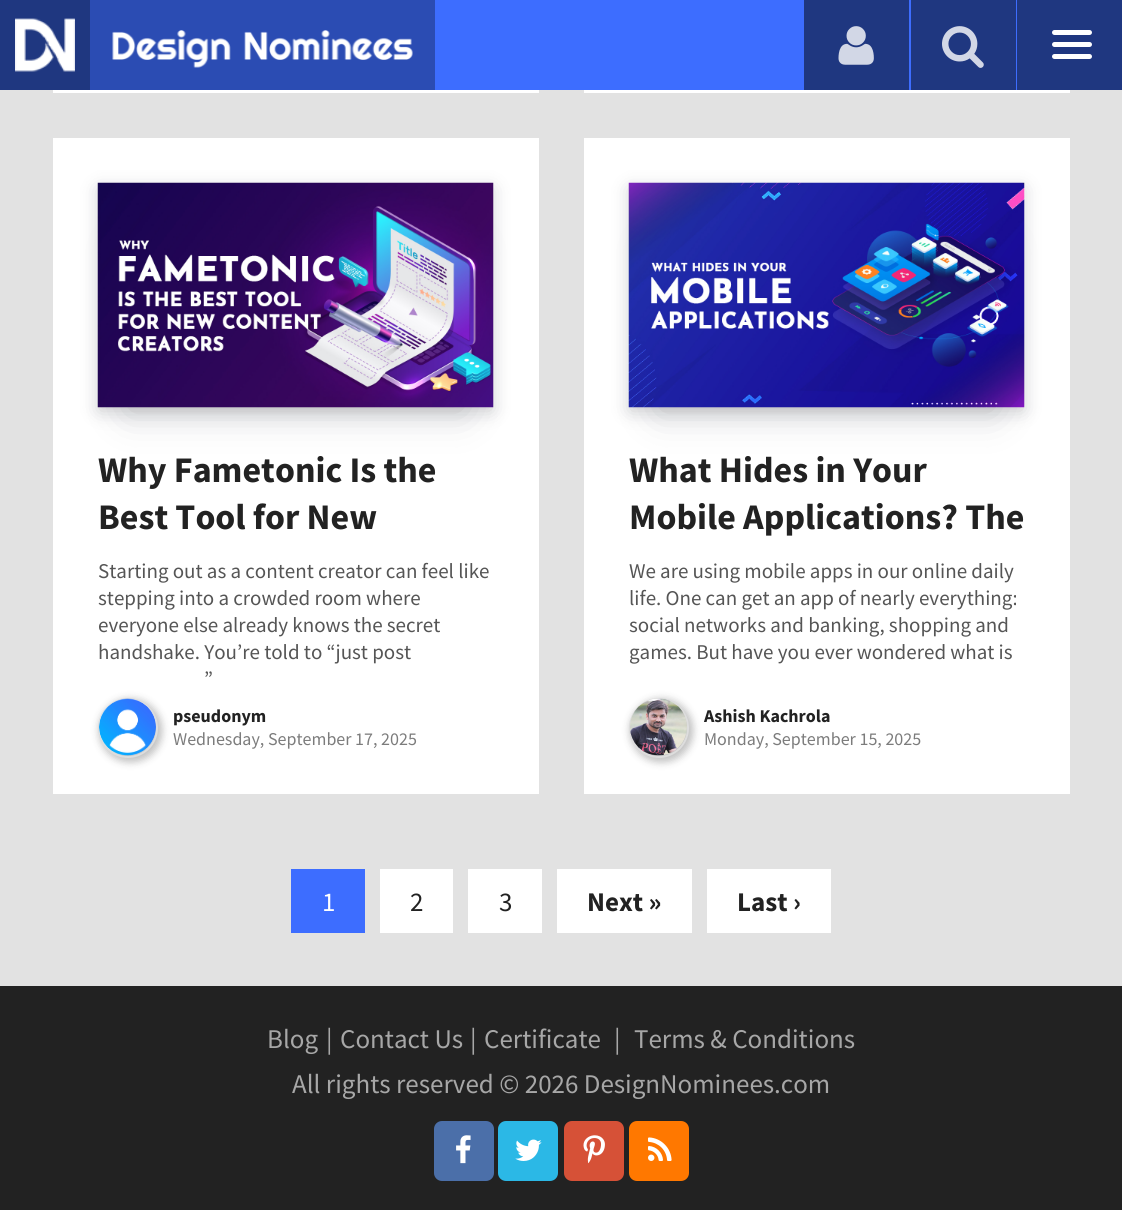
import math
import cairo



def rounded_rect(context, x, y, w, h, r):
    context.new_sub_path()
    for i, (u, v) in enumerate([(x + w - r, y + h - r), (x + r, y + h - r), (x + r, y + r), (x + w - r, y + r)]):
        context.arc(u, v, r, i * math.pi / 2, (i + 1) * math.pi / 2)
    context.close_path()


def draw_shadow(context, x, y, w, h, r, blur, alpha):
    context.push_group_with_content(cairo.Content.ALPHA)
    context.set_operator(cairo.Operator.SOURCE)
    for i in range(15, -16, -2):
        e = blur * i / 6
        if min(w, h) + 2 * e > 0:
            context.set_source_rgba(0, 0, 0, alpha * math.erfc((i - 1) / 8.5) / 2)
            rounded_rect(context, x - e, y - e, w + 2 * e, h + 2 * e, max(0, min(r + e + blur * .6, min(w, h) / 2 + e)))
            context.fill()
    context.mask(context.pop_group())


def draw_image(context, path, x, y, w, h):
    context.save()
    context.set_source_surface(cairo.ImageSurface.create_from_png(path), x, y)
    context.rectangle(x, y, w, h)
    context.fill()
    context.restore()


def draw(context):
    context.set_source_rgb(226 / 255, 226 / 255, 226 / 255)
    context.paint()
    context.set_source_rgb(61 / 255, 109 / 255, 1)
    context.rectangle(435, 0, 582, 90)
    context.fill()
    context.set_source_rgb(31 / 255, 55 / 255, 128 / 255)
    context.rectangle(0, 0, 90, 90)
    context.fill()
    draw_image(context, "images/1.png", 15, 18, 60, 54)
    context.set_source_rgb(43 / 255, 76 / 255, 179 / 255)
    context.rectangle(90, 0, 345, 90)
    context.fill()
    draw_image(context, "images/2.png", 112, 30, 301, 38)
    context.set_source_rgb(31 / 255, 55 / 255, 128 / 255)
    context.rectangle(804, 0, 105, 90)
    context.fill()
    draw_image(context, "images/3.png", 838, 26, 36, 39)
    context.rectangle(911, 0, 105, 90)
    context.fill()
    draw_image(context, "images/4.png", 942, 26, 42, 42)
    context.rectangle(1017, 0, 105, 90)
    context.fill()
    context.set_source_rgb(1, 1, 1)
    rounded_rect(context, 1052, 30, 40, 5, 2.5)
    context.fill()
    rounded_rect(context, 1052, 42, 40, 5, 2.5)
    context.fill()
    rounded_rect(context, 1052, 54, 40, 5, 2.5)
    context.fill()
    context.rectangle(53, 90, 486, 3)
    context.fill()
    context.rectangle(584, 90, 486, 3)
    context.fill()
    context.rectangle(53, 138, 486, 656)
    context.fill()
    context.set_source_rgb(7 / 255, 10 / 255, 25 / 255)
    draw_shadow(context, 128, 246, 336, 165, 0, 20, 0.2)
    draw_shadow(context, 99, 189, 393, 222, 0, 9, 0.2)
    draw_image(context, "images/5.png", 97, 182, 397, 226)
    context.set_source_rgb(0, 0, 0)
    draw_shadow(context, 99, 699, 63, 63, 31.5, 4, 0.25)
    context.arc(128, 728, 29, 0, 2 * math.pi)
    context.set_source_rgb(221 / 255, 221 / 255, 221 / 255)
    context.stroke()
    draw_image(context, "images/6.png", 99, 698, 57, 58)
    context.set_source_rgb(1, 1, 1)
    context.rectangle(584, 138, 486, 656)
    context.fill()
    context.set_source_rgb(7 / 255, 10 / 255, 25 / 255)
    draw_shadow(context, 659, 246, 336, 165, 0, 20, 0.2)
    draw_shadow(context, 630, 189, 393, 222, 0, 9, 0.2)
    draw_image(context, "images/7.png", 628, 182, 397, 226)
    context.set_source_rgb(0, 0, 0)
    draw_shadow(context, 630, 699, 63, 63, 31.5, 4, 0.25)
    context.arc(659, 728, 29, 0, 2 * math.pi)
    context.set_source_rgb(221 / 255, 221 / 255, 221 / 255)
    context.stroke()
    draw_image(context, "images/8.png", 630, 698, 57, 58)
    context.set_source_rgb(61 / 255, 109 / 255, 1)
    context.rectangle(291, 869, 74, 64)
    context.fill()
    context.set_source_rgb(1, 1, 1)
    context.rectangle(380, 869, 73, 64)
    context.fill()
    context.rectangle(468, 869, 74, 64)
    context.fill()
    context.rectangle(557, 869, 135, 64)
    context.fill()
    context.rectangle(707, 869, 124, 64)
    context.fill()
    context.set_source_rgb(34 / 255, 34 / 255, 34 / 255)
    context.rectangle(0, 986, 1122, 224)
    context.fill()
    context.set_source_rgb(75 / 255, 111 / 255, 169 / 255)
    rounded_rect(context, 434, 1121, 60, 60, 8)
    context.fill()
    draw_image(context, "images/9.png", 456, 1135, 15, 29)
    context.set_source_rgb(43 / 255, 184 / 255, 230 / 255)
    rounded_rect(context, 498, 1121, 60, 60, 8)
    context.fill()
    draw_image(context, "images/10.png", 515, 1139, 27, 22)
    context.set_source_rgb(214 / 255, 81 / 255, 55 / 255)
    rounded_rect(context, 564, 1121, 60, 60, 8)
    context.fill()
    draw_image(context, "images/11.png", 583, 1135, 22, 29)
    context.set_source_rgb(1, 120 / 255, 0)
    rounded_rect(context, 629, 1121, 60, 60, 8)
    context.fill()
    draw_image(context, "images/12.png", 648, 1137, 24, 24)
    context.select_font_face("Source Sans Pro", cairo.FontSlant.NORMAL, cairo.FontWeight.BOLD)
    context.set_font_size(36)
    context.set_source_rgb(34 / 255, 34 / 255, 34 / 255)
    context.move_to(98, 482)
    context.show_text("Why Fametonic Is the")
    context.move_to(98, 529)
    context.show_text("Best Tool for New")
    context.select_font_face("Source Sans Pro")
    context.set_font_size(21)
    context.set_source_rgb(85 / 255, 85 / 255, 85 / 255)
    context.move_to(98, 578)
    context.show_text("Starting out as a content creator can feel like")
    context.move_to(98, 605)
    context.show_text("stepping into a crowded room where")
    context.move_to(98, 632)
    context.show_text("everyone else already knows the secret")
    context.move_to(98, 659)
    context.show_text("handshake. You’re told to “just post")
    context.move_to(204, 686)
    context.show_text("”")
    context.select_font_face("Source Sans Pro", cairo.FontSlant.NORMAL, cairo.FontWeight.BOLD)
    context.set_font_size(18)
    context.set_source_rgb(34 / 255, 34 / 255, 34 / 255)
    context.move_to(173, 722)
    context.show_text("pseudonym")
    context.select_font_face("Source Sans Pro")
    context.set_source_rgb(124 / 255, 124 / 255, 124 / 255)
    context.move_to(173, 745)
    context.show_text("Wednesday, September 17, 2025")
    context.select_font_face("Source Sans Pro", cairo.FontSlant.NORMAL, cairo.FontWeight.BOLD)
    context.set_font_size(36)
    context.set_source_rgb(34 / 255, 34 / 255, 34 / 255)
    context.move_to(629, 482)
    context.show_text("What Hides in Your")
    context.move_to(629, 529)
    context.show_text("Mobile Applications? The")
    context.select_font_face("Source Sans Pro")
    context.set_font_size(21)
    context.set_source_rgb(85 / 255, 85 / 255, 85 / 255)
    context.move_to(629, 578)
    context.show_text("We are using mobile apps in our online daily")
    context.move_to(629, 605)
    context.show_text("life. One can get an app of nearly everything:")
    context.move_to(629, 632)
    context.show_text("social networks and banking, shopping and")
    context.move_to(629, 659)
    context.show_text("games. But have you ever wondered what is")
    context.select_font_face("Source Sans Pro", cairo.FontSlant.NORMAL, cairo.FontWeight.BOLD)
    context.set_font_size(18)
    context.set_source_rgb(34 / 255, 34 / 255, 34 / 255)
    context.move_to(704, 722)
    context.show_text("Ashish Kachrola")
    context.select_font_face("Source Sans Pro")
    context.set_source_rgb(124 / 255, 124 / 255, 124 / 255)
    context.move_to(704, 745)
    context.show_text("Monday, September 15, 2025")
    context.set_font_size(27)
    context.set_source_rgb(1, 1, 1)
    context.move_to(322, 911)
    context.show_text("1")
    context.set_source_rgb(34 / 255, 34 / 255, 34 / 255)
    context.move_to(410, 911)
    context.show_text("2")
    context.move_to(499, 911)
    context.show_text("3")
    context.select_font_face("Source Sans Pro", cairo.FontSlant.NORMAL, cairo.FontWeight.BOLD)
    context.move_to(587, 911)
    context.show_text("Next »")
    context.move_to(737, 911)
    context.show_text("Last ›")
    context.select_font_face("Source Sans Pro")
    context.set_source_rgb(167 / 255, 167 / 255, 167 / 255)
    context.move_to(267, 1048)
    context.show_text("Blog")
    context.move_to(326, 1048)
    context.show_text("|")
    context.move_to(340, 1048)
    context.show_text("Contact Us")
    context.move_to(470, 1048)
    context.show_text("|")
    context.move_to(484, 1048)
    context.show_text("Certificate")
    context.move_to(614, 1048)
    context.show_text("|")
    context.move_to(634, 1048)
    context.show_text("Terms & Conditions")
    context.move_to(292, 1093)
    context.show_text("All rights reserved © 2026 DesignNominees.com")


surface = cairo.ImageSurface(cairo.Format.RGB24, 1122, 1210)
context = cairo.Context(surface)
options = cairo.FontOptions()
options.set_hint_metrics(cairo.HintMetrics.OFF)
options.set_hint_style(cairo.HintStyle.NONE)
context.set_font_options(options)
context.set_miter_limit(4)
draw(context)
surface.write_to_png("out.png")
